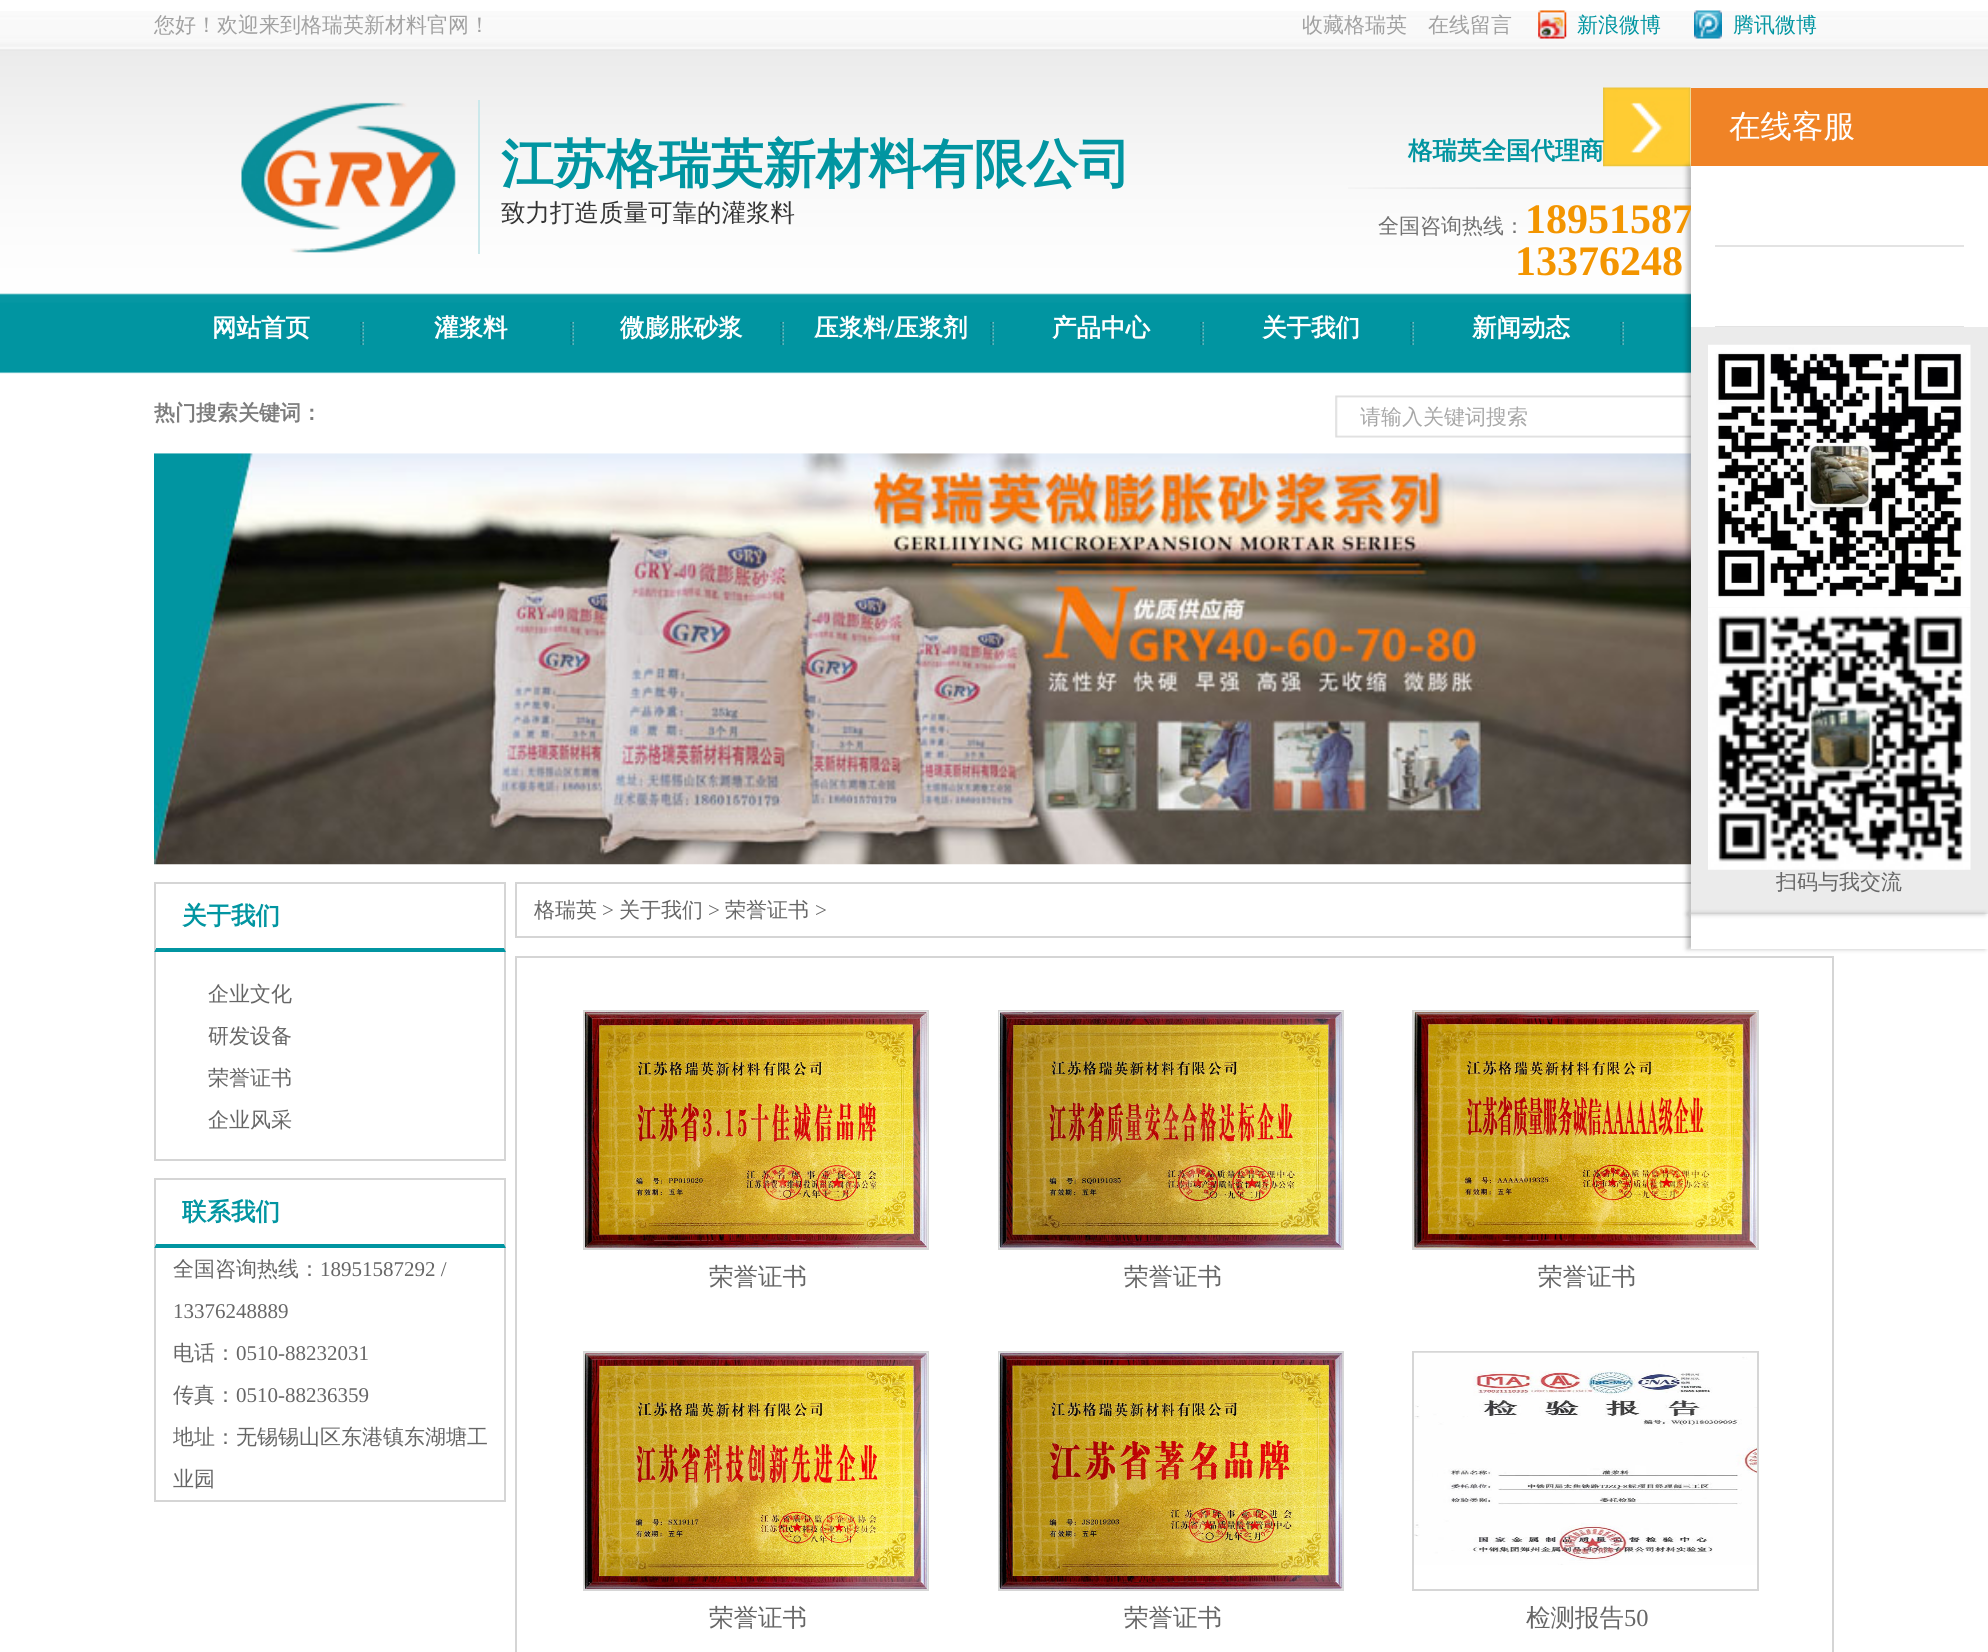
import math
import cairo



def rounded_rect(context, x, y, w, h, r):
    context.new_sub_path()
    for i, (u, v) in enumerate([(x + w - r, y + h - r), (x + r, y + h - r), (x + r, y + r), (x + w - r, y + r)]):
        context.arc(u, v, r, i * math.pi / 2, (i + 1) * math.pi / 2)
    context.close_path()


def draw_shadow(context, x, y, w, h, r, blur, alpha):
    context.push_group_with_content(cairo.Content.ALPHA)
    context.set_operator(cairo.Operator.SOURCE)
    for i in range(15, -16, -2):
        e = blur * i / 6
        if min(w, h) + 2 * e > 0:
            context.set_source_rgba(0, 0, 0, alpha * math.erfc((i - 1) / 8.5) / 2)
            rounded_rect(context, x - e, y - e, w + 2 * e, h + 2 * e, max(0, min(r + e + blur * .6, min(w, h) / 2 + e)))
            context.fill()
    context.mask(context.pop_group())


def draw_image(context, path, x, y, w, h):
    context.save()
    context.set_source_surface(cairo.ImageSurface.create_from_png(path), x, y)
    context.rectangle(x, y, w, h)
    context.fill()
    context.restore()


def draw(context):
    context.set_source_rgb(1, 1, 1)
    context.paint()
    draw_image(context, "images/1.png", 0, 11, 1988, 363)
    draw_image(context, "images/2.png", 1538, 10, 29, 29)
    draw_image(context, "images/3.png", 1694, 10, 28, 29)
    context.set_source_rgb(203 / 255, 232 / 255, 235 / 255)
    context.rectangle(478, 100, 2, 154)
    context.fill()
    draw_image(context, "images/4.png", 241, 102, 215, 151)
    draw_image(context, "images/5.png", 1348, 187, 343, 2)
    draw_image(context, "images/6.png", 360, 322, 4, 23)
    draw_image(context, "images/6.png", 570, 322, 4, 23)
    draw_image(context, "images/6.png", 780, 322, 4, 23)
    draw_image(context, "images/6.png", 990, 322, 4, 23)
    draw_image(context, "images/6.png", 1200, 322, 4, 23)
    draw_image(context, "images/6.png", 1410, 322, 4, 23)
    draw_image(context, "images/6.png", 1620, 322, 4, 23)
    draw_image(context, "images/7.png", 1335, 395, 356, 43)
    draw_image(context, "images/8.png", 1603, 87, 88, 80)
    context.rectangle(516, 883, 1317, 54)
    context.set_source_rgb(213 / 255, 213 / 255, 213 / 255)
    context.stroke()
    context.set_source_rgb(1, 1, 1)
    context.rectangle(1691, 914, 143, 24)
    context.fill()
    draw_image(context, "images/11.png", 154, 453, 1537, 412)
    context.set_source_rgb(0, 0, 0)
    draw_shadow(context, 1687, 166, 298, 748, 0, 2.5, 0.25)
    context.set_source_rgb(240 / 255, 131 / 255, 38 / 255)
    context.rectangle(1691, 88, 297, 78)
    context.fill()
    context.set_source_rgb(235 / 255, 235 / 255, 235 / 255)
    context.rectangle(1691, 327, 297, 587)
    context.fill()
    draw_image(context, "images/9.png", 1708, 344, 263, 264)
    draw_image(context, "images/10.png", 1708, 607, 263, 263)
    context.rectangle(516, 957, 1317, 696)
    context.set_source_rgb(213 / 255, 213 / 255, 213 / 255)
    context.stroke()
    context.save()
    context.set_fill_rule(cairo.FillRule.EVEN_ODD)
    context.new_path()
    context.move_to(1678, 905)
    context.line_to(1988, 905)
    context.line_to(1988, 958)
    context.line_to(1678, 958)
    context.close_path()
    context.move_to(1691, 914)
    context.line_to(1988, 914)
    context.line_to(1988, 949)
    context.line_to(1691, 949)
    context.close_path()
    context.clip()
    context.set_source_rgb(0, 0, 0)
    draw_shadow(context, 1687, 914, 298, 35, 0, 2.5, 0.25)
    context.restore()
    context.rectangle(154, 882, 352, 2)
    context.fill()
    context.new_path()
    context.move_to(506, 882)
    context.line_to(506, 952)
    context.line_to(504, 948)
    context.line_to(504, 884)
    context.close_path()
    context.fill()
    context.set_source_rgb(1 / 255, 149 / 255, 161 / 255)
    context.new_path()
    context.move_to(506, 952)
    context.line_to(154, 952)
    context.line_to(156, 948)
    context.line_to(504, 948)
    context.close_path()
    context.fill()
    context.set_source_rgb(213 / 255, 213 / 255, 213 / 255)
    context.new_path()
    context.move_to(154, 952)
    context.line_to(154, 882)
    context.line_to(156, 884)
    context.line_to(156, 948)
    context.close_path()
    context.fill()
    context.rectangle(504, 952, 2, 208)
    context.fill()
    context.rectangle(154, 1159, 352, 2)
    context.fill()
    context.rectangle(154, 952, 2, 208)
    context.fill()
    context.rectangle(154, 1178, 352, 2)
    context.fill()
    context.new_path()
    context.move_to(506, 1178)
    context.line_to(506, 1248)
    context.line_to(504, 1244)
    context.line_to(504, 1180)
    context.close_path()
    context.fill()
    context.set_source_rgb(1 / 255, 149 / 255, 161 / 255)
    context.new_path()
    context.move_to(506, 1248)
    context.line_to(154, 1248)
    context.line_to(156, 1244)
    context.line_to(504, 1244)
    context.close_path()
    context.fill()
    context.set_source_rgb(213 / 255, 213 / 255, 213 / 255)
    context.new_path()
    context.move_to(154, 1248)
    context.line_to(154, 1178)
    context.line_to(156, 1180)
    context.line_to(156, 1244)
    context.close_path()
    context.fill()
    context.rectangle(504, 1248, 2, 254)
    context.fill()
    context.rectangle(154, 1500, 352, 2)
    context.fill()
    context.rectangle(154, 1248, 2, 254)
    context.fill()
    context.rectangle(584, 1011, 344, 238)
    context.set_source_rgb(214 / 255, 214 / 255, 214 / 255)
    context.stroke()
    draw_image(context, "images/12.png", 584, 1011, 344, 237)
    context.rectangle(999, 1011, 344, 238)
    context.stroke()
    draw_image(context, "images/13.png", 999, 1011, 344, 237)
    context.rectangle(1413, 1011, 345, 238)
    context.stroke()
    draw_image(context, "images/14.png", 1414, 1011, 343, 237)
    context.rectangle(584, 1352, 344, 238)
    context.stroke()
    draw_image(context, "images/15.png", 584, 1352, 344, 237)
    context.rectangle(999, 1352, 344, 238)
    context.stroke()
    draw_image(context, "images/16.png", 999, 1352, 344, 237)
    context.rectangle(1413, 1352, 345, 238)
    context.stroke()
    draw_image(context, "images/17.png", 1414, 1352, 343, 213)
    context.select_font_face("WenQuanYi Zen Hei Medium")
    context.set_font_size(21)
    context.set_source_rgb(161 / 255, 161 / 255, 161 / 255)
    context.move_to(154, 32)
    context.show_text("您好！欢迎来到格瑞英新材料官网！")
    context.move_to(1302, 32)
    context.show_text("收藏格瑞英")
    context.move_to(1428, 32)
    context.show_text("在线留言")
    context.set_source_rgb(1 / 255, 149 / 255, 161 / 255)
    context.move_to(1577, 32)
    context.show_text("新浪微博")
    context.move_to(1733, 32)
    context.show_text("腾讯微博")
    context.select_font_face("WenQuanYi Zen Hei", cairo.FontSlant.NORMAL, cairo.FontWeight.BOLD)
    context.set_font_size(52.5)
    context.move_to(501, 182)
    context.show_text("江苏格瑞英新材料有限公司")
    context.select_font_face("WenQuanYi Zen Hei Medium")
    context.set_font_size(24.5)
    context.set_source_rgb(51 / 255, 51 / 255, 51 / 255)
    context.move_to(501, 221)
    context.show_text("致力打造质量可靠的灌浆料")
    context.select_font_face("WenQuanYi Zen Hei", cairo.FontSlant.NORMAL, cairo.FontWeight.BOLD)
    context.set_source_rgb(1 / 255, 149 / 255, 161 / 255)
    context.move_to(1408, 159)
    context.show_text("格瑞英全国代理商")
    context.select_font_face("WenQuanYi Zen Hei Medium")
    context.set_font_size(21)
    context.set_source_rgb(112 / 255, 112 / 255, 112 / 255)
    context.move_to(1378, 233)
    context.show_text("全国咨询热线：")
    context.select_font_face("Liberation Serif", cairo.FontSlant.NORMAL, cairo.FontWeight.BOLD)
    context.set_font_size(42)
    context.set_source_rgb(243 / 255, 149 / 255, 0)
    context.move_to(1525, 233)
    context.show_text("18951587")
    context.move_to(1515, 275)
    context.show_text("13376248")
    context.select_font_face("WenQuanYi Zen Hei", cairo.FontSlant.NORMAL, cairo.FontWeight.BOLD)
    context.set_font_size(24.5)
    context.set_source_rgb(1, 1, 1)
    context.move_to(212, 336)
    context.show_text("网站首页")
    context.move_to(434, 336)
    context.show_text("灌浆料")
    context.move_to(620, 336)
    context.show_text("微膨胀砂浆")
    context.move_to(814, 336)
    context.show_text("压浆料")
    context.select_font_face("Liberation Serif", cairo.FontSlant.NORMAL, cairo.FontWeight.BOLD)
    context.move_to(887, 336)
    context.show_text("/")
    context.select_font_face("WenQuanYi Zen Hei", cairo.FontSlant.NORMAL, cairo.FontWeight.BOLD)
    context.move_to(894, 336)
    context.show_text("压浆剂")
    context.move_to(1052, 336)
    context.show_text("产品中心")
    context.move_to(1262, 336)
    context.show_text("关于我们")
    context.move_to(1472, 336)
    context.show_text("新闻动态")
    context.set_font_size(21)
    context.set_source_rgb(125 / 255, 125 / 255, 125 / 255)
    context.move_to(154, 420)
    context.show_text("热门搜索关键词：")
    context.select_font_face("WenQuanYi Zen Hei Medium")
    context.set_source_rgb(167 / 255, 167 / 255, 167 / 255)
    context.move_to(1360, 424)
    context.show_text("请输入关键词搜索")
    context.set_font_size(31.5)
    context.set_source_rgb(1, 1, 1)
    context.move_to(1729, 137)
    context.show_text("在线客服")
    context.rectangle(1691, 166, 297, 161)
    context.fill()
    context.set_source_rgb(227 / 255, 227 / 255, 227 / 255)
    context.rectangle(1715, 245, 249, 2)
    context.fill()
    context.rectangle(1715, 326, 249, 1)
    context.fill()
    context.set_font_size(21)
    context.set_source_rgb(102 / 255, 102 / 255, 102 / 255)
    context.move_to(1776, 889)
    context.show_text("扫码与我交流")
    context.select_font_face("WenQuanYi Zen Hei", cairo.FontSlant.NORMAL, cairo.FontWeight.BOLD)
    context.set_font_size(24.5)
    context.set_source_rgb(1 / 255, 149 / 255, 161 / 255)
    context.move_to(182, 924)
    context.show_text("关于我们")
    context.select_font_face("WenQuanYi Zen Hei Medium")
    context.set_font_size(21)
    context.set_source_rgb(102 / 255, 102 / 255, 102 / 255)
    context.move_to(208, 1001)
    context.show_text("企业文化")
    context.move_to(208, 1043)
    context.show_text("研发设备")
    context.move_to(208, 1085)
    context.show_text("荣誉证书")
    context.move_to(208, 1127)
    context.show_text("企业风采")
    context.select_font_face("WenQuanYi Zen Hei", cairo.FontSlant.NORMAL, cairo.FontWeight.BOLD)
    context.set_font_size(24.5)
    context.set_source_rgb(1 / 255, 149 / 255, 161 / 255)
    context.move_to(182, 1220)
    context.show_text("联系我们")
    context.select_font_face("WenQuanYi Zen Hei Medium")
    context.set_font_size(21)
    context.set_source_rgb(102 / 255, 102 / 255, 102 / 255)
    context.move_to(173, 1276)
    context.show_text("全国咨询热线：")
    context.select_font_face("Liberation Serif")
    context.move_to(320, 1276)
    context.show_text("18951587292 /")
    context.move_to(173, 1318)
    context.show_text("13376248889")
    context.select_font_face("WenQuanYi Zen Hei Medium")
    context.move_to(173, 1360)
    context.show_text("电话：")
    context.select_font_face("Liberation Serif")
    context.move_to(236, 1360)
    context.show_text("0510-88232031")
    context.select_font_face("WenQuanYi Zen Hei Medium")
    context.move_to(173, 1402)
    context.show_text("传真：")
    context.select_font_face("Liberation Serif")
    context.move_to(236, 1402)
    context.show_text("0510-88236359")
    context.select_font_face("WenQuanYi Zen Hei Medium")
    context.move_to(173, 1444)
    context.show_text("地址：无锡锡山区东港镇东湖塘工")
    context.move_to(173, 1486)
    context.show_text("业园")
    context.move_to(534, 917)
    context.show_text("格瑞英")
    context.select_font_face("Liberation Serif")
    context.move_to(602, 917)
    context.show_text(">")
    context.select_font_face("WenQuanYi Zen Hei Medium")
    context.move_to(619, 917)
    context.show_text("关于我们")
    context.select_font_face("Liberation Serif")
    context.move_to(708, 917)
    context.show_text(">")
    context.select_font_face("WenQuanYi Zen Hei Medium")
    context.move_to(725, 917)
    context.show_text("荣誉证书")
    context.select_font_face("Liberation Serif")
    context.move_to(815, 917)
    context.show_text(">")
    context.select_font_face("WenQuanYi Zen Hei Medium")
    context.set_font_size(24.5)
    context.move_to(709, 1285)
    context.show_text("荣誉证书")
    context.move_to(1124, 1285)
    context.show_text("荣誉证书")
    context.move_to(1538, 1285)
    context.show_text("荣誉证书")
    context.move_to(709, 1626)
    context.show_text("荣誉证书")
    context.move_to(1124, 1626)
    context.show_text("荣誉证书")
    context.move_to(1526, 1626)
    context.show_text("检测报告")
    context.select_font_face("Liberation Serif")
    context.move_to(1624, 1626)
    context.show_text("50")


surface = cairo.ImageSurface(cairo.Format.RGB24, 1988, 1652)
context = cairo.Context(surface)
options = cairo.FontOptions()
options.set_hint_metrics(cairo.HintMetrics.OFF)
options.set_hint_style(cairo.HintStyle.NONE)
context.set_font_options(options)
context.set_miter_limit(4)
draw(context)
surface.write_to_png("out.png")
